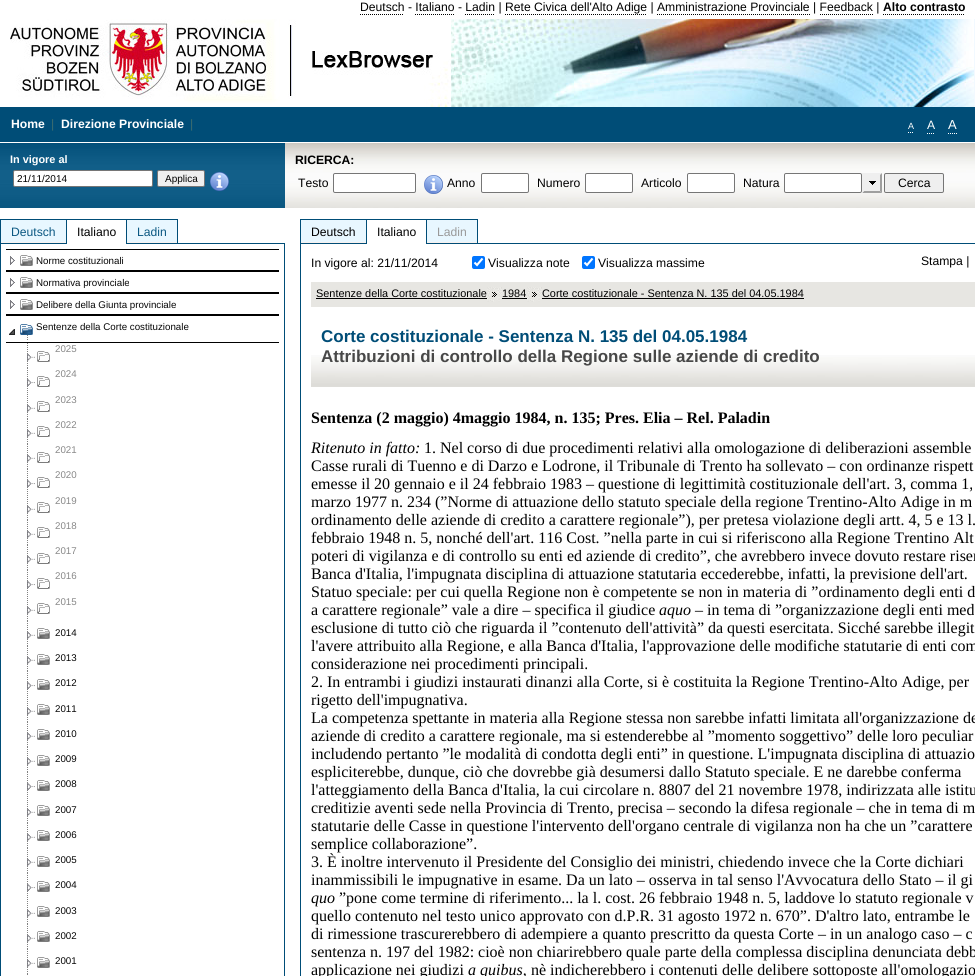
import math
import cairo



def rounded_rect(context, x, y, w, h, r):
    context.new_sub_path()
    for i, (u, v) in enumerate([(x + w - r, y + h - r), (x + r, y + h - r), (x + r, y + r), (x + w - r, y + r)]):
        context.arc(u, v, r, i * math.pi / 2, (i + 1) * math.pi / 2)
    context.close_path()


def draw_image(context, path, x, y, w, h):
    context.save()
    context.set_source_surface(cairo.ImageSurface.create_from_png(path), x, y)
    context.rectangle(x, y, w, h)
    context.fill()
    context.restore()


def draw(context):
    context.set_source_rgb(1, 1, 1)
    context.paint()
    context.new_path()
    context.move_to(360, 14.5)
    context.line_to(404, 14.5)
    context.set_source_rgb(0, 0, 0)
    context.set_line_width(1)
    context.set_dash([1, 1])
    context.stroke()
    context.new_path()
    context.move_to(883, 14.5)
    context.line_to(965, 14.5)
    context.stroke()
    context.new_path()
    context.move_to(415, 14.5)
    context.line_to(454, 14.5)
    context.stroke()
    context.new_path()
    context.move_to(465, 14.5)
    context.line_to(495, 14.5)
    context.stroke()
    context.new_path()
    context.move_to(505, 14.5)
    context.line_to(647, 14.5)
    context.stroke()
    context.new_path()
    context.move_to(657, 14.5)
    context.line_to(810, 14.5)
    context.stroke()
    context.new_path()
    context.move_to(820, 14.5)
    context.line_to(873, 14.5)
    context.stroke()
    draw_image(context, "images/1.png", 451, 19, 524, 88)
    draw_image(context, "images/2.png", 10, 19, 441, 88)
    context.set_source_rgb(0, 77 / 255, 119 / 255)
    context.rectangle(0, 107, 975, 35)
    context.fill()
    context.new_path()
    context.move_to(908, 132.5)
    context.line_to(909, 132.5)
    context.move_to(910, 132.5)
    context.line_to(911, 132.5)
    context.move_to(912, 132.5)
    context.line_to(913, 132.5)
    context.set_source_rgb(1, 1, 1)
    context.set_dash([])
    context.stroke()
    context.new_path()
    context.move_to(927, 133.5)
    context.line_to(935, 133.5)
    context.set_dash([1, 1])
    context.stroke()
    context.new_path()
    context.move_to(948, 133.5)
    context.line_to(957, 133.5)
    context.stroke()
    draw_image(context, "images/3.png", 285, 143, 690, 65)
    draw_image(context, "images/4.png", 0, 143, 285, 65)
    rounded_rect(context, 13.5, 170.5, 139, 16, 1.5)
    context.fill_preserve()
    context.set_source_rgb(118 / 255, 118 / 255, 118 / 255)
    context.set_dash([])
    context.stroke()
    context.set_source_rgb(239 / 255, 239 / 255, 239 / 255)
    rounded_rect(context, 157.5, 170.5, 47, 16, 1.5)
    context.fill_preserve()
    context.set_source_rgb(118 / 255, 118 / 255, 118 / 255)
    context.stroke()
    draw_image(context, "images/5.png", 210, 172, 19, 19)
    context.set_source_rgb(1, 1, 1)
    rounded_rect(context, 333.5, 173.5, 82, 19, 1.5)
    context.fill_preserve()
    context.set_source_rgb(118 / 255, 118 / 255, 118 / 255)
    context.stroke()
    draw_image(context, "images/6.png", 424, 175, 19, 19)
    context.set_source_rgb(1, 1, 1)
    rounded_rect(context, 481.5, 173.5, 47, 19, 1.5)
    context.fill_preserve()
    context.set_source_rgb(118 / 255, 118 / 255, 118 / 255)
    context.stroke()
    context.set_source_rgb(1, 1, 1)
    rounded_rect(context, 585.5, 173.5, 47, 19, 1.5)
    context.fill_preserve()
    context.set_source_rgb(118 / 255, 118 / 255, 118 / 255)
    context.stroke()
    context.set_source_rgb(1, 1, 1)
    rounded_rect(context, 687.5, 173.5, 47, 19, 1.5)
    context.fill_preserve()
    context.set_source_rgb(118 / 255, 118 / 255, 118 / 255)
    context.stroke()
    context.set_source_rgb(1, 1, 1)
    rounded_rect(context, 784.5, 173.5, 77, 19, 1.5)
    context.fill_preserve()
    context.set_source_rgb(118 / 255, 118 / 255, 118 / 255)
    context.stroke()
    context.set_source_rgb(239 / 255, 239 / 255, 239 / 255)
    context.rectangle(862, 173, 20, 20)
    context.fill()
    draw_image(context, "images/7.png", 869, 181, 7, 4)
    context.set_source_rgb(159 / 255, 159 / 255, 159 / 255)
    context.new_path()
    context.move_to(882, 173)
    context.line_to(882, 193)
    context.line_to(880, 191)
    context.line_to(880, 175)
    context.close_path()
    context.fill()
    context.new_path()
    context.move_to(882, 193)
    context.line_to(862, 193)
    context.line_to(864, 191)
    context.line_to(880, 191)
    context.close_path()
    context.fill()
    context.set_source_rgb(239 / 255, 239 / 255, 239 / 255)
    context.new_path()
    context.move_to(862, 193)
    context.line_to(862, 173)
    context.line_to(864, 175)
    context.line_to(864, 191)
    context.close_path()
    context.fill()
    rounded_rect(context, 884.5, 173.5, 59, 19, 1.5)
    context.fill_preserve()
    context.set_source_rgb(118 / 255, 118 / 255, 118 / 255)
    context.stroke()
    context.set_source_rgb(0, 77 / 255, 119 / 255)
    context.rectangle(178, 243, 107, 1)
    context.fill()
    context.set_source_rgb(232 / 255, 247 / 255, 1)
    context.rectangle(1, 220, 65, 22)
    context.fill()
    draw_image(context, "images/8.png", 1, 242, 65, 2)
    context.set_source_rgb(0, 77 / 255, 119 / 255)
    context.rectangle(0, 219, 178, 1)
    context.fill()
    context.rectangle(0, 219, 1, 757)
    context.fill()
    context.rectangle(66, 219, 1, 25)
    context.fill()
    context.set_source_rgb(232 / 255, 247 / 255, 1)
    context.rectangle(127, 220, 50, 22)
    context.fill()
    draw_image(context, "images/9.png", 127, 242, 50, 2)
    context.set_source_rgb(0, 77 / 255, 119 / 255)
    context.rectangle(177, 219, 1, 25)
    context.fill()
    context.rectangle(126, 219, 1, 25)
    context.fill()
    context.rectangle(284, 244, 1, 732)
    context.fill()
    context.set_source_rgb(0, 0, 0)
    context.rectangle(6, 249, 273, 1)
    context.fill()
    context.rectangle(6, 270, 273, 2)
    context.fill()
    draw_image(context, "images/10.png", 10, 256, 5, 9)
    draw_image(context, "images/11.png", 20, 255, 13, 11)
    context.rectangle(6, 292, 273, 2)
    context.fill()
    draw_image(context, "images/10.png", 10, 278, 5, 9)
    draw_image(context, "images/11.png", 20, 277, 13, 11)
    context.rectangle(6, 314, 273, 2)
    context.fill()
    draw_image(context, "images/10.png", 10, 300, 5, 9)
    draw_image(context, "images/11.png", 20, 299, 13, 11)
    context.rectangle(6, 342, 273, 1)
    context.fill()
    draw_image(context, "images/12.png", 9, 329, 6, 6)
    draw_image(context, "images/13.png", 20, 324, 13, 16)
    draw_image(context, "images/14.png", 27, 343, 1, 25)
    draw_image(context, "images/15.png", 27, 354, 8, 7)
    draw_image(context, "images/16.png", 37, 351, 13, 11)
    draw_image(context, "images/14.png", 27, 368, 1, 25)
    draw_image(context, "images/17.png", 27, 379, 8, 8)
    draw_image(context, "images/16.png", 37, 376, 13, 11)
    draw_image(context, "images/14.png", 27, 394, 1, 25)
    draw_image(context, "images/15.png", 27, 405, 8, 7)
    draw_image(context, "images/16.png", 37, 401, 13, 11)
    draw_image(context, "images/14.png", 27, 419, 1, 25)
    draw_image(context, "images/15.png", 27, 430, 8, 7)
    draw_image(context, "images/16.png", 37, 426, 13, 11)
    draw_image(context, "images/14.png", 27, 444, 1, 25)
    draw_image(context, "images/15.png", 27, 455, 8, 7)
    draw_image(context, "images/16.png", 37, 452, 13, 11)
    draw_image(context, "images/14.png", 27, 469, 1, 25)
    draw_image(context, "images/17.png", 27, 480, 8, 8)
    draw_image(context, "images/16.png", 37, 477, 13, 11)
    draw_image(context, "images/14.png", 27, 495, 1, 25)
    draw_image(context, "images/15.png", 27, 506, 8, 7)
    draw_image(context, "images/16.png", 37, 502, 13, 11)
    draw_image(context, "images/14.png", 27, 520, 1, 25)
    draw_image(context, "images/15.png", 27, 531, 8, 7)
    draw_image(context, "images/16.png", 37, 527, 13, 11)
    draw_image(context, "images/14.png", 27, 545, 1, 25)
    draw_image(context, "images/15.png", 27, 556, 8, 7)
    draw_image(context, "images/16.png", 37, 553, 13, 11)
    draw_image(context, "images/14.png", 27, 570, 1, 25)
    draw_image(context, "images/17.png", 27, 581, 8, 8)
    draw_image(context, "images/16.png", 37, 578, 13, 11)
    draw_image(context, "images/14.png", 27, 596, 1, 25)
    draw_image(context, "images/15.png", 27, 607, 8, 7)
    draw_image(context, "images/16.png", 37, 603, 13, 11)
    draw_image(context, "images/14.png", 27, 621, 1, 25)
    draw_image(context, "images/15.png", 27, 632, 8, 7)
    draw_image(context, "images/11.png", 37, 628, 13, 11)
    draw_image(context, "images/14.png", 27, 646, 1, 25)
    draw_image(context, "images/15.png", 27, 657, 8, 7)
    draw_image(context, "images/11.png", 37, 654, 13, 11)
    draw_image(context, "images/14.png", 27, 671, 1, 25)
    draw_image(context, "images/17.png", 27, 682, 8, 8)
    draw_image(context, "images/11.png", 37, 679, 13, 11)
    draw_image(context, "images/14.png", 27, 697, 1, 25)
    draw_image(context, "images/15.png", 27, 708, 8, 7)
    draw_image(context, "images/11.png", 37, 704, 13, 11)
    draw_image(context, "images/14.png", 27, 722, 1, 25)
    draw_image(context, "images/15.png", 27, 733, 8, 7)
    draw_image(context, "images/11.png", 37, 729, 13, 11)
    draw_image(context, "images/14.png", 27, 747, 1, 25)
    draw_image(context, "images/15.png", 27, 758, 8, 7)
    draw_image(context, "images/11.png", 37, 755, 13, 11)
    draw_image(context, "images/14.png", 27, 772, 1, 25)
    draw_image(context, "images/17.png", 27, 783, 8, 8)
    draw_image(context, "images/11.png", 37, 780, 13, 11)
    draw_image(context, "images/14.png", 27, 798, 1, 25)
    draw_image(context, "images/15.png", 27, 809, 8, 7)
    draw_image(context, "images/11.png", 37, 805, 13, 11)
    draw_image(context, "images/14.png", 27, 823, 1, 25)
    draw_image(context, "images/15.png", 27, 834, 8, 7)
    draw_image(context, "images/11.png", 37, 830, 13, 11)
    draw_image(context, "images/14.png", 27, 848, 1, 25)
    draw_image(context, "images/15.png", 27, 859, 8, 7)
    draw_image(context, "images/11.png", 37, 856, 13, 11)
    draw_image(context, "images/14.png", 27, 873, 1, 25)
    draw_image(context, "images/17.png", 27, 884, 8, 8)
    draw_image(context, "images/11.png", 37, 881, 13, 11)
    draw_image(context, "images/14.png", 27, 899, 1, 25)
    draw_image(context, "images/15.png", 27, 910, 8, 7)
    draw_image(context, "images/11.png", 37, 906, 13, 11)
    draw_image(context, "images/14.png", 27, 924, 1, 25)
    draw_image(context, "images/15.png", 27, 935, 8, 7)
    draw_image(context, "images/11.png", 37, 931, 13, 11)
    draw_image(context, "images/14.png", 27, 949, 1, 25)
    draw_image(context, "images/15.png", 27, 960, 8, 7)
    draw_image(context, "images/11.png", 37, 957, 13, 11)
    context.set_source_rgb(128 / 255, 128 / 255, 128 / 255)
    context.rectangle(27, 974, 1, 1)
    context.fill()
    context.set_source_rgb(0, 77 / 255, 119 / 255)
    context.rectangle(478, 243, 497, 1)
    context.fill()
    context.set_source_rgb(232 / 255, 247 / 255, 1)
    context.rectangle(301, 220, 65, 22)
    context.fill()
    draw_image(context, "images/8.png", 301, 242, 65, 2)
    context.set_source_rgb(0, 77 / 255, 119 / 255)
    context.rectangle(300, 219, 178, 1)
    context.fill()
    context.rectangle(300, 219, 1, 25)
    context.fill()
    context.rectangle(366, 219, 1, 25)
    context.fill()
    context.set_source_rgb(232 / 255, 247 / 255, 1)
    context.rectangle(427, 220, 50, 22)
    context.fill()
    draw_image(context, "images/9.png", 427, 242, 50, 2)
    context.set_source_rgb(0, 77 / 255, 119 / 255)
    context.rectangle(477, 219, 1, 25)
    context.fill()
    context.rectangle(426, 219, 1, 25)
    context.fill()
    context.rectangle(300, 244, 1, 732)
    context.fill()
    context.set_source_rgb(0, 117 / 255, 1)
    rounded_rect(context, 472, 256, 13, 13, 2)
    context.fill()
    context.new_path()
    context.move_to(474.5, 262.5)
    context.line_to(477, 265)
    context.line_to(482.5, 258.5)
    context.set_source_rgb(1, 1, 1)
    context.set_line_width(2.1)
    context.stroke()
    context.set_source_rgb(0, 117 / 255, 1)
    rounded_rect(context, 582, 256, 13, 13, 2)
    context.fill()
    context.new_path()
    context.move_to(584.5, 262.5)
    context.line_to(587, 265)
    context.line_to(592.5, 258.5)
    context.set_source_rgb(1, 1, 1)
    context.stroke()
    context.set_source_rgb(231 / 255, 230 / 255, 226 / 255)
    context.rectangle(311, 282, 664, 25)
    context.fill()
    context.set_source_rgb(0, 0, 0)
    context.rectangle(316, 298, 171, 1)
    context.fill()
    context.rectangle(502, 298, 25, 1)
    context.fill()
    draw_image(context, "images/18.png", 527, 287, 15, 15)
    context.rectangle(542, 298, 262, 1)
    context.fill()
    draw_image(context, "images/19.png", 311, 355, 664, 32)
    context.select_font_face("Liberation Sans")
    context.set_font_size(12.15)
    context.move_to(360, 11)
    context.show_text("Deutsch - Italiano - Ladin | Rete Civica dell'Alto Adige | Amministrazione Provinciale | Feedback |")
    context.select_font_face("Liberation Sans", cairo.FontSlant.NORMAL, cairo.FontWeight.BOLD)
    context.move_to(883, 11)
    context.show_text("Alto contrasto")
    context.set_source_rgb(1, 1, 1)
    context.move_to(11, 128)
    context.show_text("Home")
    context.select_font_face("Liberation Sans")
    context.set_source_rgb(60 / 255, 108 / 255, 110 / 255)
    context.move_to(51, 128)
    context.show_text("|")
    context.select_font_face("Liberation Sans", cairo.FontSlant.NORMAL, cairo.FontWeight.BOLD)
    context.set_source_rgb(1, 1, 1)
    context.move_to(61, 128)
    context.show_text("Direzione Provinciale")
    context.select_font_face("Liberation Sans")
    context.set_source_rgb(60 / 255, 108 / 255, 110 / 255)
    context.move_to(190, 128)
    context.show_text("|")
    context.set_font_size(9)
    context.set_source_rgb(1, 1, 1)
    context.move_to(908, 129)
    context.show_text("A")
    context.set_font_size(12.15)
    context.move_to(927, 129)
    context.show_text("A")
    context.set_font_size(13)
    context.move_to(948, 129)
    context.show_text("A")
    context.select_font_face("Liberation Sans", cairo.FontSlant.NORMAL, cairo.FontWeight.BOLD)
    context.set_font_size(10.9)
    context.move_to(10, 163)
    context.show_text("In vigore al")
    context.select_font_face("Liberation Sans")
    context.set_font_size(10)
    context.set_source_rgb(0, 0, 0)
    context.move_to(17, 182)
    context.show_text("21/11/2014")
    context.move_to(165, 182)
    context.show_text("Applica")
    context.select_font_face("Liberation Sans", cairo.FontSlant.NORMAL, cairo.FontWeight.BOLD)
    context.set_font_size(12.15)
    context.move_to(295, 164)
    context.show_text("RICERCA:")
    context.select_font_face("Liberation Sans")
    context.move_to(298, 187)
    context.show_text("Testo")
    context.move_to(447, 187)
    context.show_text("Anno")
    context.move_to(537, 187)
    context.show_text("Numero")
    context.move_to(641, 187)
    context.show_text("Articolo")
    context.move_to(743, 187)
    context.show_text("Natura")
    context.move_to(898, 187)
    context.show_text("Cerca")
    context.set_source_rgb(11 / 255, 88 / 255, 130 / 255)
    context.move_to(11, 236)
    context.show_text("Deutsch")
    context.set_source_rgb(0, 0, 0)
    context.move_to(77, 236)
    context.show_text("Italiano")
    context.set_source_rgb(11 / 255, 88 / 255, 130 / 255)
    context.move_to(137, 236)
    context.show_text("Ladin")
    context.set_font_size(9.75)
    context.set_source_rgb(7 / 255, 7 / 255, 7 / 255)
    context.move_to(36, 264)
    context.show_text("Norme costituzionali")
    context.move_to(36, 286)
    context.show_text("Normativa provinciale")
    context.move_to(36, 308)
    context.show_text("Delibere della Giunta provinciale")
    context.move_to(36, 330)
    context.show_text("Sentenze della Corte costituzionale")
    context.set_source_rgb(136 / 255, 136 / 255, 136 / 255)
    context.move_to(55, 352)
    context.show_text("2025")
    context.move_to(55, 377)
    context.show_text("2024")
    context.move_to(55, 403)
    context.show_text("2023")
    context.move_to(55, 428)
    context.show_text("2022")
    context.move_to(55, 453)
    context.show_text("2021")
    context.move_to(55, 478)
    context.show_text("2020")
    context.move_to(55, 504)
    context.show_text("2019")
    context.move_to(55, 529)
    context.show_text("2018")
    context.move_to(55, 554)
    context.show_text("2017")
    context.move_to(55, 579)
    context.show_text("2016")
    context.move_to(55, 605)
    context.show_text("2015")
    context.set_source_rgb(7 / 255, 7 / 255, 7 / 255)
    context.move_to(55, 636)
    context.show_text("2014")
    context.move_to(55, 661)
    context.show_text("2013")
    context.move_to(55, 686)
    context.show_text("2012")
    context.move_to(55, 712)
    context.show_text("2011")
    context.move_to(55, 737)
    context.show_text("2010")
    context.move_to(55, 762)
    context.show_text("2009")
    context.move_to(55, 787)
    context.show_text("2008")
    context.move_to(55, 813)
    context.show_text("2007")
    context.move_to(55, 838)
    context.show_text("2006")
    context.move_to(55, 863)
    context.show_text("2005")
    context.move_to(55, 888)
    context.show_text("2004")
    context.move_to(55, 914)
    context.show_text("2003")
    context.move_to(55, 939)
    context.show_text("2002")
    context.move_to(55, 964)
    context.show_text("2001")
    context.set_font_size(12.15)
    context.set_source_rgb(0, 0, 0)
    context.move_to(311, 236)
    context.show_text("Deutsch")
    context.move_to(377, 236)
    context.show_text("Italiano")
    context.set_source_rgb(153 / 255, 153 / 255, 153 / 255)
    context.move_to(437, 236)
    context.show_text("Ladin")
    context.set_source_rgb(0, 0, 0)
    context.move_to(311, 267)
    context.show_text("In vigore al: 21/11/2014")
    context.move_to(488, 267)
    context.show_text("Visualizza note")
    context.move_to(598, 267)
    context.show_text("Visualizza massime")
    context.move_to(921, 265)
    context.show_text("Stampa |")
    context.set_font_size(10.9)
    context.move_to(316, 297)
    context.show_text("Sentenze della Corte costituzionale")
    draw_image(context, "images/18.png", 487, 287, 15, 15)
    context.move_to(502, 297)
    context.show_text("1984")
    context.move_to(542, 297)
    context.show_text("Corte costituzionale - Sentenza N. 135 del 04.05.1984")
    context.select_font_face("Liberation Sans", cairo.FontSlant.NORMAL, cairo.FontWeight.BOLD)
    context.set_font_size(17)
    context.set_source_rgb(0, 77 / 255, 119 / 255)
    context.move_to(321, 342)
    context.show_text("Corte costituzionale - Sentenza N. 135 del 04.05.1984")
    context.set_source_rgb(72 / 255, 72 / 255, 72 / 255)
    context.move_to(321, 362)
    context.show_text("Attribuzioni di controllo della Regione sulle aziende di credito")
    context.select_font_face("Liberation Serif", cairo.FontSlant.NORMAL, cairo.FontWeight.BOLD)
    context.set_font_size(16)
    context.set_source_rgb(0, 0, 0)
    context.move_to(311, 423)
    context.show_text("Sentenza (2 maggio) 4maggio 1984, n. 135; Pres. Elia – Rel. Paladin")
    context.select_font_face("Liberation Serif", cairo.FontSlant.ITALIC)
    context.move_to(311, 453)
    context.show_text("Ritenuto in fatto:")
    context.select_font_face("Liberation Serif")
    context.move_to(424, 453)
    context.show_text("1. Nel corso di due procedimenti relativi alla omologazione di deliberazioni assemble")
    context.move_to(311, 471)
    context.show_text("Casse rurali di Tuenno e di Darzo e Lodrone, il Tribunale di Trento ha sollevato – con ordinanze rispett")
    context.move_to(311, 489)
    context.show_text("emesse il 20 gennaio e il 24 febbraio 1983 – questione di legittimità costituzionale dell'art. 3, comma 1,")
    context.move_to(311, 507)
    context.show_text("marzo 1977 n. 234 (”Norme di attuazione dello statuto speciale della regione Trentino-Alto Adige in m")
    context.move_to(311, 525)
    context.show_text("ordinamento delle aziende di credito a carattere regionale”), per pretesa violazione degli artt. 4, 5 e 13 l.")
    context.move_to(311, 543)
    context.show_text("febbraio 1948 n. 5, nonché dell'art. 116 Cost. ”nella parte in cui si riferiscono alla Regione Trentino Alt")
    context.move_to(311, 561)
    context.show_text("poteri di vigilanza e di controllo su enti ed aziende di credito”, che avrebbero invece dovuto restare riser")
    context.move_to(311, 579)
    context.show_text("Banca d'Italia, l'impugnata disciplina di attuazione statutaria eccederebbe, infatti, la previsione dell'art.")
    context.move_to(311, 597)
    context.show_text("Statuo speciale: per cui quella Regione non è competente se non in materia di ”ordinamento degli enti d")
    context.move_to(311, 615)
    context.show_text("a carattere regionale” vale a dire – specifica il giudice")
    context.select_font_face("Liberation Serif", cairo.FontSlant.ITALIC)
    context.move_to(659, 615)
    context.show_text("aquo")
    context.select_font_face("Liberation Serif")
    context.move_to(695, 615)
    context.show_text("– in tema di ”organizzazione degli enti med")
    context.move_to(311, 633)
    context.show_text("esclusione di tutto ciò che riguarda il ”contenuto dell'attività” da questi esercitata. Sicché sarebbe illegit")
    context.move_to(311, 651)
    context.show_text("l'avere attribuito alla Regione, e alla Banca d'Italia, l'approvazione delle modifiche statutarie di enti com")
    context.move_to(311, 669)
    context.show_text("considerazione nei procedimenti principali.")
    context.move_to(311, 687)
    context.show_text("2. In entrambi i giudizi instaurati dinanzi alla Corte, si è costituita la Regione Trentino-Alto Adige, per")
    context.move_to(311, 705)
    context.show_text("rigetto dell'impugnativa.")
    context.move_to(311, 723)
    context.show_text("La competenza spettante in materia alla Regione stessa non sarebbe infatti limitata all'organizzazione de")
    context.move_to(311, 741)
    context.show_text("aziende di credito a carattere regionale, ma si estenderebbe al ”momento soggettivo” delle loro peculiar")
    context.move_to(311, 759)
    context.show_text("includendo pertanto ”le modalità di condotta degli enti” in questione. L'impugnata disciplina di attuazio")
    context.move_to(311, 777)
    context.show_text("espliciterebbe, dunque, ciò che dovrebbe già desumersi dallo Statuto speciale. E ne darebbe conferma")
    context.move_to(311, 795)
    context.show_text("l'atteggiamento della Banca d'Italia, la cui circolare n. 8807 del 21 novembre 1978, indirizzata alle istitu")
    context.move_to(311, 813)
    context.show_text("creditizie aventi sede nella Provincia di Trento, precisa – secondo la difesa regionale – che in tema di m")
    context.move_to(311, 831)
    context.show_text("statutarie delle Casse in questione l'intervento dell'organo centrale di vigilanza non ha che un ”carattere")
    context.move_to(311, 849)
    context.show_text("semplice collaborazione”.")
    context.move_to(311, 867)
    context.show_text("3. È inoltre intervenuto il Presidente del Consiglio dei ministri, chiedendo invece che la Corte dichiari")
    context.move_to(311, 885)
    context.show_text("inammissibili le impugnative in esame. Da un lato – osserva in tal senso l'Avvocatura dello Stato – il gi")
    context.select_font_face("Liberation Serif", cairo.FontSlant.ITALIC)
    context.move_to(311, 903)
    context.show_text("quo")
    context.select_font_face("Liberation Serif")
    context.move_to(339, 903)
    context.show_text("”pone come termine di riferimento... la l. cost. 26 febbraio 1948 n. 5, laddove lo statuto regionale v")
    context.move_to(311, 921)
    context.show_text("quello contenuto nel testo unico approvato con d.P.R. 31 agosto 1972 n. 670”. D'altro lato, entrambe le")
    context.move_to(311, 939)
    context.show_text("di rimessione trascurerebbero di adempiere a quanto prescritto da questa Corte – in un analogo caso – c")
    context.move_to(311, 957)
    context.show_text("sentenza n. 197 del 1982: cioè non chiarirebbero quale parte della complessa disciplina denunciata debb")
    context.move_to(311, 975)
    context.show_text("applicazione nei giudizi")
    context.select_font_face("Liberation Serif", cairo.FontSlant.ITALIC)
    context.move_to(468, 975)
    context.show_text("a quibus,")
    context.select_font_face("Liberation Serif")
    context.move_to(531, 975)
    context.show_text("nè indicherebbero i contenuti delle delibere sottoposte all'omologazio")


surface = cairo.ImageSurface(cairo.Format.RGB24, 975, 976)
context = cairo.Context(surface)
options = cairo.FontOptions()
options.set_hint_metrics(cairo.HintMetrics.OFF)
options.set_hint_style(cairo.HintStyle.NONE)
context.set_font_options(options)
context.set_miter_limit(4)
draw(context)
surface.write_to_png("out.png")
